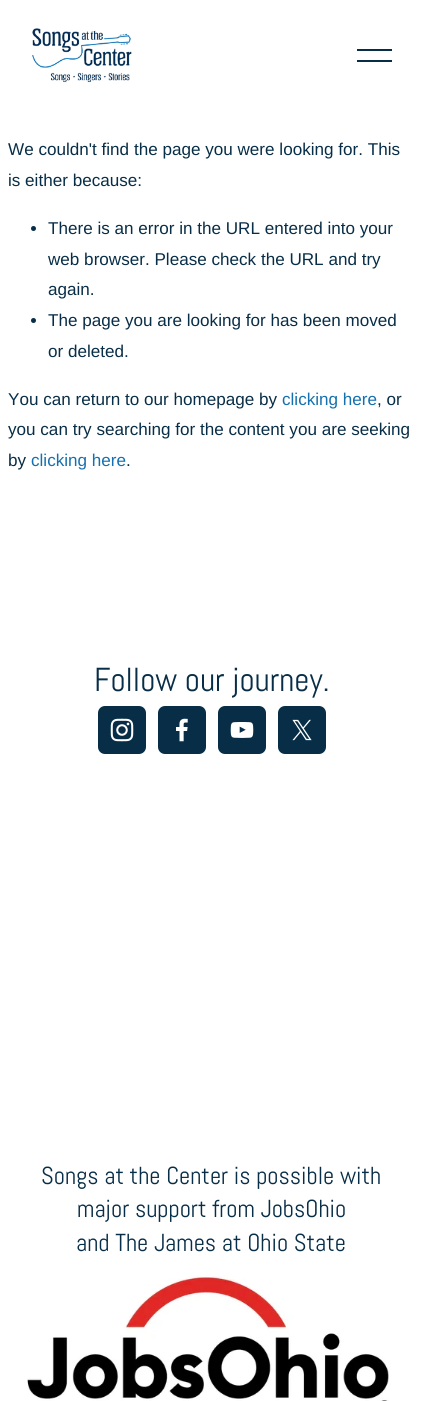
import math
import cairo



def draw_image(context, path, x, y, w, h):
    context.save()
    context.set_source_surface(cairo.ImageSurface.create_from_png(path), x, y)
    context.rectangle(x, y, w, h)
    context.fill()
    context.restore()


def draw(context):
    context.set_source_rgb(1, 1, 1)
    context.paint()
    draw_image(context, "images/1.png", 32, 28, 100, 55)
    context.set_source_rgb(8 / 255, 46 / 255, 71 / 255)
    context.rectangle(357, 49, 35, 2)
    context.fill()
    context.rectangle(357, 60, 35, 2)
    context.fill()
    context.arc(33.5, 228.5, 2.5, 0, 2 * math.pi)
    context.fill()
    context.arc(33.5, 320.5, 2.5, 0, 2 * math.pi)
    context.fill()
    draw_image(context, "images/2.png", 98, 706, 48, 48)
    draw_image(context, "images/3.png", 158, 706, 48, 48)
    draw_image(context, "images/4.png", 218, 706, 48, 48)
    draw_image(context, "images/5.png", 278, 706, 48, 48)
    draw_image(context, "images/6.png", 27, 1275, 362, 126)
    context.select_font_face("Liberation Sans")
    context.set_font_size(17.1)
    context.move_to(8, 155)
    context.show_text("We couldn't find the page you were looking for. This")
    context.move_to(8, 186)
    context.show_text("is either because:")
    context.move_to(48, 234)
    context.show_text("There is an error in the URL entered into your")
    context.move_to(48, 265)
    context.show_text("web browser. Please check the URL and try")
    context.move_to(48, 295)
    context.show_text("again.")
    context.move_to(48, 326)
    context.show_text("The page you are looking for has been moved")
    context.move_to(48, 357)
    context.show_text("or deleted.")
    context.move_to(8, 405)
    context.show_text("You can return to our homepage by")
    context.set_source_rgb(20 / 255, 112 / 255, 175 / 255)
    context.move_to(282, 405)
    context.show_text("clicking here")
    context.set_source_rgb(8 / 255, 46 / 255, 71 / 255)
    context.move_to(377, 405)
    context.show_text(", or")
    context.move_to(8, 435)
    context.show_text("you can try searching for the content you are seeking")
    context.move_to(8, 466)
    context.show_text("by")
    context.set_source_rgb(20 / 255, 112 / 255, 175 / 255)
    context.move_to(31, 466)
    context.show_text("clicking here")
    context.set_source_rgb(8 / 255, 46 / 255, 71 / 255)
    context.move_to(126, 466)
    context.show_text(".")
    context.select_font_face("Abel")
    context.set_font_size(33.25)
    context.move_to(94, 691)
    context.show_text("Follow our journey.")
    context.set_font_size(24.6)
    context.move_to(41, 1184)
    context.show_text("Songs at the Center is possible with")
    context.move_to(77, 1217)
    context.show_text("major support from JobsOhio")
    context.move_to(76, 1251)
    context.show_text("and The James at Ohio State")


surface = cairo.ImageSurface(cairo.Format.RGB24, 423, 1401)
context = cairo.Context(surface)
options = cairo.FontOptions()
options.set_hint_metrics(cairo.HintMetrics.OFF)
options.set_hint_style(cairo.HintStyle.NONE)
context.set_font_options(options)
context.set_miter_limit(4)
draw(context)
surface.write_to_png("out.png")
